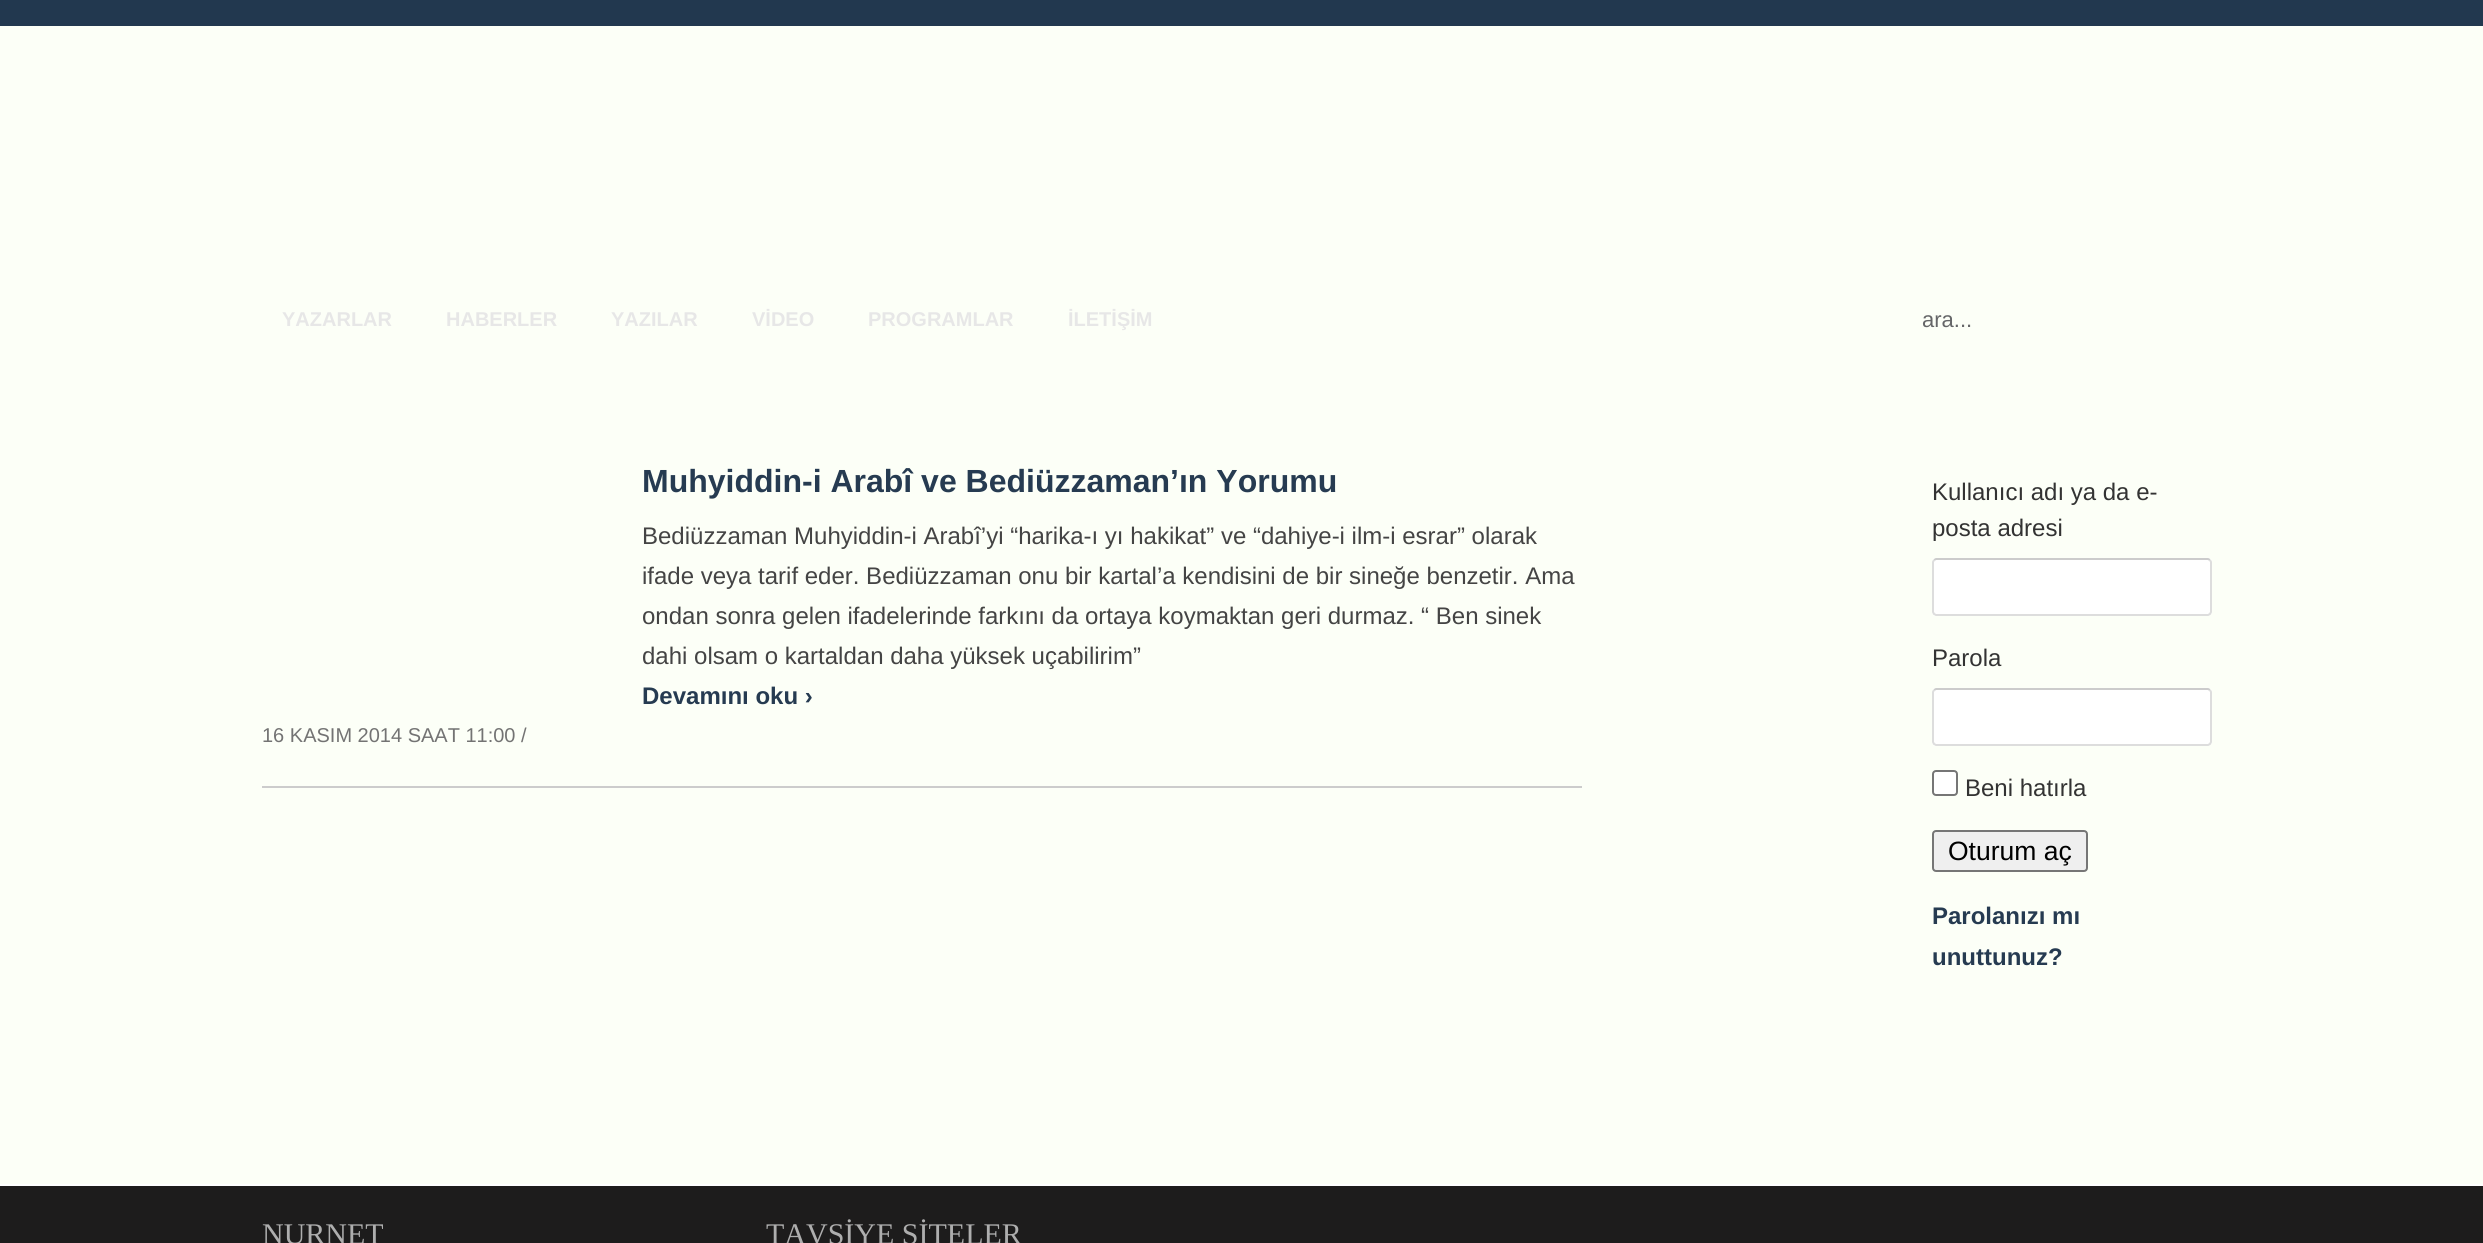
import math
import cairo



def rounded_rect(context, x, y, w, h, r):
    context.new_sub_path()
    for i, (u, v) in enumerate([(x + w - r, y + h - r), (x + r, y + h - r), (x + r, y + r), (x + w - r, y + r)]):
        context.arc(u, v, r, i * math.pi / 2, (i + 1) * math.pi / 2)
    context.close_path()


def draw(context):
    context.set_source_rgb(252 / 255, 1, 247 / 255)
    context.paint()
    context.set_source_rgb(34 / 255, 56 / 255, 79 / 255)
    context.rectangle(0, 0, 2483, 26)
    context.fill()
    context.set_source_rgb(204 / 255, 204 / 255, 204 / 255)
    context.rectangle(262, 786, 1320, 2)
    context.fill()
    context.set_source_rgb(1, 1, 1)
    rounded_rect(context, 1932, 558, 280, 58, 4)
    context.fill()
    context.new_path()
    context.move_to(1934, 560)
    context.line_to(1936, 559)
    context.line_to(2208, 559)
    context.line_to(2210, 560)
    context.set_source_rgb(204 / 255, 204 / 255, 204 / 255)
    context.stroke()
    context.new_path()
    context.move_to(2210, 560)
    context.line_to(2211, 562)
    context.line_to(2211, 612)
    context.line_to(2210, 614)
    context.line_to(2208, 615)
    context.line_to(1936, 615)
    context.line_to(1934, 614)
    context.line_to(1933, 612)
    context.line_to(1933, 562)
    context.line_to(1934, 560)
    context.set_source_rgb(221 / 255, 221 / 255, 221 / 255)
    context.stroke()
    context.set_source_rgb(1, 1, 1)
    rounded_rect(context, 1932, 688, 280, 58, 4)
    context.fill()
    context.new_path()
    context.move_to(1934, 690)
    context.line_to(1936, 689)
    context.line_to(2208, 689)
    context.line_to(2210, 690)
    context.set_source_rgb(204 / 255, 204 / 255, 204 / 255)
    context.stroke()
    context.new_path()
    context.move_to(2210, 690)
    context.line_to(2211, 692)
    context.line_to(2211, 742)
    context.line_to(2210, 744)
    context.line_to(2208, 745)
    context.line_to(1936, 745)
    context.line_to(1934, 744)
    context.line_to(1933, 742)
    context.line_to(1933, 692)
    context.line_to(1934, 690)
    context.set_source_rgb(221 / 255, 221 / 255, 221 / 255)
    context.stroke()
    context.set_source_rgb(1, 1, 1)
    rounded_rect(context, 1933, 771, 24, 24, 3)
    context.fill_preserve()
    context.set_source_rgb(118 / 255, 118 / 255, 118 / 255)
    context.stroke()
    context.set_source_rgb(239 / 255, 239 / 255, 239 / 255)
    rounded_rect(context, 1933, 831, 154, 40, 3)
    context.fill_preserve()
    context.set_source_rgb(118 / 255, 118 / 255, 118 / 255)
    context.stroke()
    context.set_source_rgb(29 / 255, 28 / 255, 28 / 255)
    context.rectangle(0, 1186, 2483, 57)
    context.fill()
    context.set_source_rgb(1, 1, 1)
    context.rectangle(0, 1184, 2483, 2)
    context.fill()
    context.select_font_face("Liberation Sans", cairo.FontSlant.NORMAL, cairo.FontWeight.BOLD)
    context.set_font_size(20)
    context.set_source_rgb(231 / 255, 231 / 255, 231 / 255)
    context.move_to(282, 326)
    context.show_text("YAZARLAR")
    context.move_to(446, 326)
    context.show_text("HABERLER")
    context.move_to(611, 326)
    context.show_text("YAZILAR")
    context.move_to(752, 326)
    context.show_text("VİDEO")
    context.move_to(868, 326)
    context.show_text("PROGRAMLAR")
    context.move_to(1068, 326)
    context.show_text("İLETİŞİM")
    context.select_font_face("Liberation Sans")
    context.set_font_size(22)
    context.set_source_rgb(101 / 255, 102 / 255, 104 / 255)
    context.move_to(1922, 327)
    context.show_text("ara...")
    context.select_font_face("Liberation Sans", cairo.FontSlant.NORMAL, cairo.FontWeight.BOLD)
    context.set_font_size(32)
    context.set_source_rgb(38 / 255, 59 / 255, 81 / 255)
    context.move_to(642, 492)
    context.show_text("Muhyiddin-i Arabî ve Bediüzzaman’ın Yorumu")
    context.select_font_face("Liberation Sans")
    context.set_font_size(24)
    context.set_source_rgb(68 / 255, 68 / 255, 68 / 255)
    context.move_to(642, 544)
    context.show_text("Bediüzzaman Muhyiddin-i Arabî’yi “harika-ı yı hakikat” ve “dahiye-i ilm-i esrar” olarak")
    context.move_to(642, 584)
    context.show_text("ifade veya tarif eder. Bediüzzaman onu bir kartal’a kendisini de bir sineğe benzetir. Ama")
    context.move_to(642, 624)
    context.show_text("ondan sonra gelen ifadelerinde farkını da ortaya koymaktan geri durmaz. “ Ben sinek")
    context.move_to(642, 664)
    context.show_text("dahi olsam o kartaldan daha yüksek uçabilirim”")
    context.select_font_face("Liberation Sans", cairo.FontSlant.NORMAL, cairo.FontWeight.BOLD)
    context.set_source_rgb(38 / 255, 59 / 255, 81 / 255)
    context.move_to(642, 704)
    context.show_text("Devamını oku ›")
    context.select_font_face("Liberation Sans")
    context.set_font_size(20)
    context.set_source_rgb(115 / 255, 115 / 255, 115 / 255)
    context.move_to(262, 742)
    context.show_text("16 KASIM 2014 SAAT 11:00 /")
    context.set_font_size(24)
    context.set_source_rgb(51 / 255, 51 / 255, 51 / 255)
    context.move_to(1932, 500)
    context.show_text("Kullanıcı adı ya da e-")
    context.move_to(1932, 536)
    context.show_text("posta adresi")
    context.move_to(1932, 666)
    context.show_text("Parola")
    context.move_to(1965, 796)
    context.show_text("Beni hatırla")
    context.set_font_size(26.5)
    context.set_source_rgb(0, 0, 0)
    context.move_to(1948, 860)
    context.show_text("Oturum aç")
    context.select_font_face("Liberation Sans", cairo.FontSlant.NORMAL, cairo.FontWeight.BOLD)
    context.set_font_size(24)
    context.set_source_rgb(38 / 255, 59 / 255, 81 / 255)
    context.move_to(1932, 924)
    context.show_text("Parolanızı mı")
    context.move_to(1932, 965)
    context.show_text("unuttunuz?")
    context.select_font_face("Liberation Serif")
    context.set_font_size(30)
    context.set_source_rgb(174 / 255, 174 / 255, 174 / 255)
    context.move_to(262, 1244)
    context.show_text("NURNET")
    context.move_to(766, 1244)
    context.show_text("TAVSİYE SİTELER")


surface = cairo.ImageSurface(cairo.Format.RGB24, 2483, 1243)
context = cairo.Context(surface)
options = cairo.FontOptions()
options.set_hint_metrics(cairo.HintMetrics.OFF)
options.set_hint_style(cairo.HintStyle.NONE)
context.set_font_options(options)
context.set_miter_limit(4)
draw(context)
surface.write_to_png("out.png")
